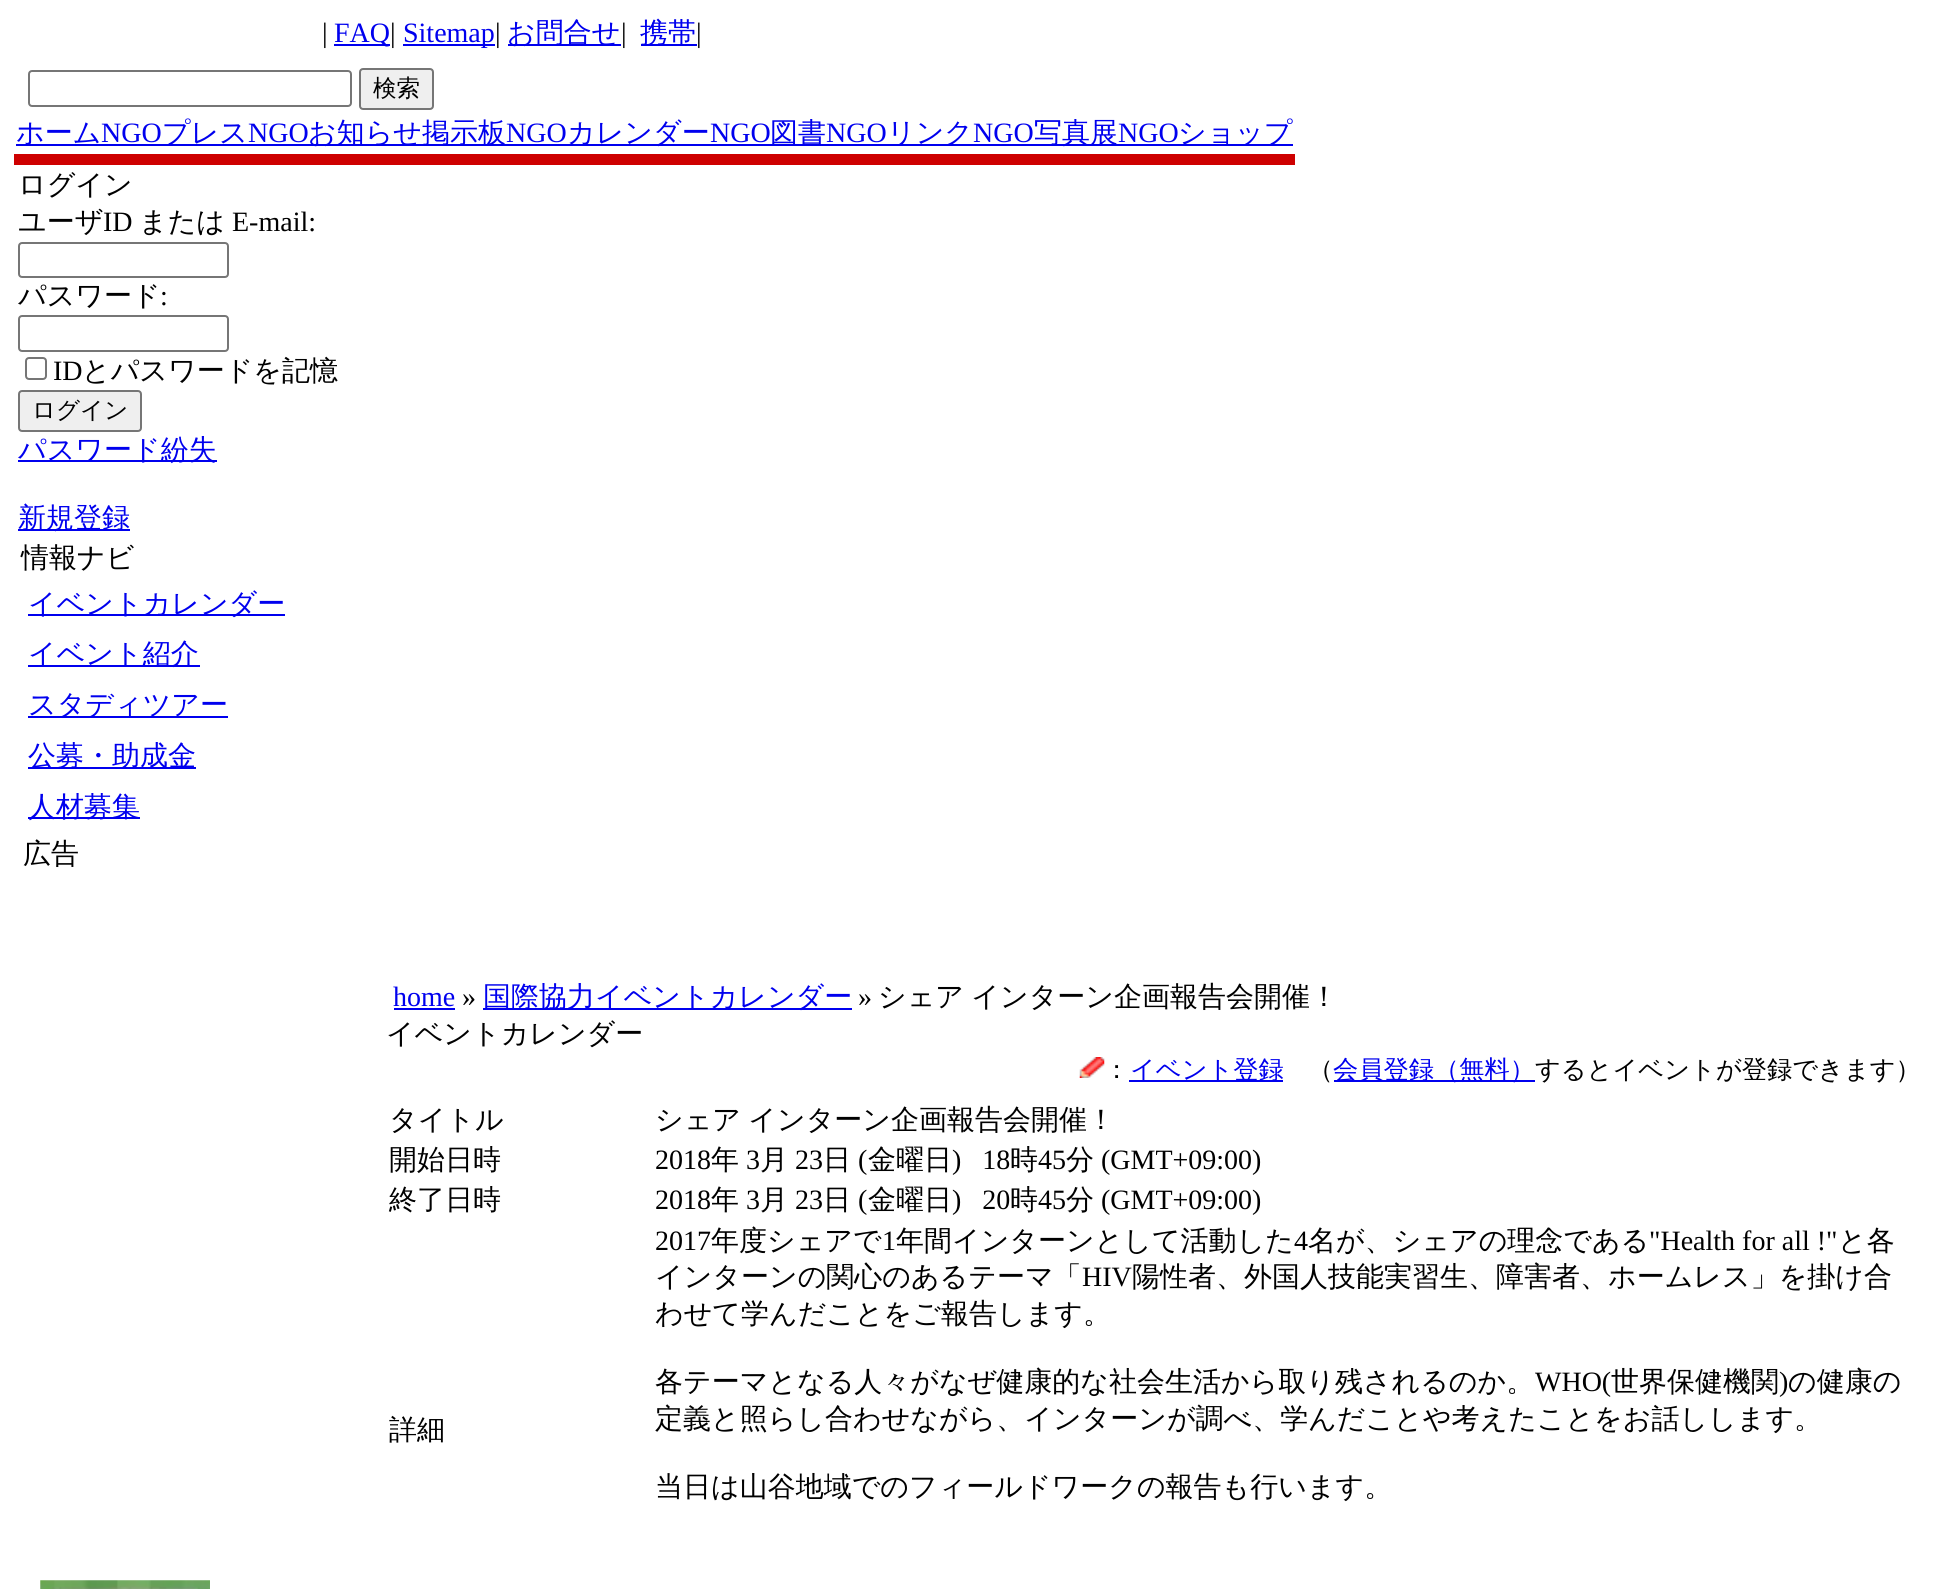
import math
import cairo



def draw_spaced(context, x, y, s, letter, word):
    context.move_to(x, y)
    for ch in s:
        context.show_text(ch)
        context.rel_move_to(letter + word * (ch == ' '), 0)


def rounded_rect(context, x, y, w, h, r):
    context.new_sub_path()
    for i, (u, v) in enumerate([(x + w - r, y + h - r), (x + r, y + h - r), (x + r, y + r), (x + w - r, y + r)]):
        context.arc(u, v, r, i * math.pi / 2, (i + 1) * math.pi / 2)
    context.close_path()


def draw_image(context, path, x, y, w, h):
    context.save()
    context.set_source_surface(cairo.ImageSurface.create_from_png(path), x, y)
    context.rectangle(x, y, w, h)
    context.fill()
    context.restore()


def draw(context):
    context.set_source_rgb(1, 1, 1)
    context.paint()
    context.set_source_rgb(0, 0, 238 / 255)
    context.rectangle(334, 44, 56, 2)
    context.fill()
    context.rectangle(403, 44, 92, 2)
    context.fill()
    context.rectangle(508, 44, 113, 2)
    context.fill()
    context.rectangle(641, 44, 56, 2)
    context.fill()
    rounded_rect(context, 29, 71, 322, 35, 3)
    context.set_source_rgb(118 / 255, 118 / 255, 118 / 255)
    context.stroke()
    context.set_source_rgb(239 / 255, 239 / 255, 239 / 255)
    rounded_rect(context, 360, 69, 73, 40, 3)
    context.fill_preserve()
    context.set_source_rgb(118 / 255, 118 / 255, 118 / 255)
    context.stroke()
    context.set_source_rgb(0, 0, 238 / 255)
    context.rectangle(16, 144, 1277, 2)
    context.fill()
    context.set_source_rgb(206 / 255, 0, 0)
    context.rectangle(14, 154, 1281, 11)
    context.fill()
    rounded_rect(context, 19, 243, 209, 34, 3)
    context.set_source_rgb(118 / 255, 118 / 255, 118 / 255)
    context.stroke()
    rounded_rect(context, 19, 316, 209, 35, 3)
    context.stroke()
    rounded_rect(context, 26, 358, 20, 21, 3)
    context.stroke()
    context.set_source_rgb(239 / 255, 239 / 255, 239 / 255)
    rounded_rect(context, 19, 391, 122, 40, 3)
    context.fill_preserve()
    context.set_source_rgb(118 / 255, 118 / 255, 118 / 255)
    context.stroke()
    context.set_source_rgb(0, 0, 238 / 255)
    context.rectangle(18, 460, 199, 2)
    context.fill()
    context.rectangle(18, 529, 112, 2)
    context.fill()
    context.rectangle(28, 614, 257, 2)
    context.fill()
    context.rectangle(28, 665, 172, 2)
    context.fill()
    context.rectangle(28, 716, 200, 2)
    context.fill()
    context.rectangle(28, 767, 168, 2)
    context.fill()
    context.rectangle(28, 817, 112, 2)
    context.fill()
    draw_image(context, "images/1.png", 40, 1580, 170, 9)
    context.rectangle(394, 1008, 61, 2)
    context.fill()
    context.rectangle(483, 1008, 369, 2)
    context.fill()
    draw_image(context, "images/2.png", 1079, 1057, 26, 21)
    context.rectangle(1129, 1080, 154, 2)
    context.fill()
    context.rectangle(1334, 1080, 201, 2)
    context.fill()
    context.select_font_face("Liberation Serif")
    context.set_font_size(28)
    context.set_source_rgb(0, 0, 0)
    context.move_to(322, 42)
    context.show_text("|")
    context.set_source_rgb(0, 0, 238 / 255)
    context.move_to(334, 42)
    context.show_text("FAQ")
    context.set_source_rgb(0, 0, 0)
    context.move_to(390, 42)
    context.show_text("|")
    context.set_source_rgb(0, 0, 238 / 255)
    context.move_to(403, 42)
    context.show_text("Sitemap")
    context.set_source_rgb(0, 0, 0)
    context.move_to(495, 42)
    context.show_text("|")
    context.select_font_face("WenQuanYi Zen Hei Medium")
    context.set_source_rgb(0, 0, 238 / 255)
    context.move_to(507, 42)
    context.show_text("お問合せ")
    context.select_font_face("Liberation Serif")
    context.set_source_rgb(0, 0, 0)
    context.move_to(621, 42)
    context.show_text("|")
    context.select_font_face("WenQuanYi Zen Hei Medium")
    context.set_source_rgb(0, 0, 238 / 255)
    context.move_to(640, 42)
    context.show_text("携帯")
    context.select_font_face("Liberation Serif")
    context.set_source_rgb(0, 0, 0)
    context.move_to(696, 42)
    context.show_text("|")
    context.select_font_face("WenQuanYi Zen Hei Medium")
    context.set_font_size(23.5)
    context.move_to(373, 96)
    context.show_text("検索")
    context.set_font_size(28)
    context.set_source_rgb(0, 0, 238 / 255)
    context.move_to(16, 142)
    context.show_text("ホーム")
    context.select_font_face("Liberation Serif")
    context.move_to(101, 142)
    context.show_text("NGO")
    context.select_font_face("WenQuanYi Zen Hei Medium")
    context.move_to(162, 142)
    context.show_text("プレス")
    context.select_font_face("Liberation Serif")
    context.move_to(248, 142)
    context.show_text("NGO")
    context.select_font_face("WenQuanYi Zen Hei Medium")
    context.move_to(308, 142)
    context.show_text("お知らせ掲示板")
    context.select_font_face("Liberation Serif")
    context.move_to(506, 142)
    context.show_text("NGO")
    context.select_font_face("WenQuanYi Zen Hei Medium")
    context.move_to(567, 142)
    context.show_text("カレンダー")
    context.select_font_face("Liberation Serif")
    context.move_to(710, 142)
    context.show_text("NGO")
    context.select_font_face("WenQuanYi Zen Hei Medium")
    context.move_to(770, 142)
    context.show_text("図書")
    context.select_font_face("Liberation Serif")
    context.move_to(826, 142)
    context.show_text("NGO")
    context.select_font_face("WenQuanYi Zen Hei Medium")
    context.move_to(887, 142)
    context.show_text("リンク")
    context.select_font_face("Liberation Serif")
    context.move_to(973, 142)
    context.show_text("NGO")
    context.select_font_face("WenQuanYi Zen Hei Medium")
    context.move_to(1034, 142)
    context.show_text("写真展")
    context.select_font_face("Liberation Serif")
    context.move_to(1118, 142)
    context.show_text("NGO")
    context.select_font_face("WenQuanYi Zen Hei Medium")
    context.move_to(1178, 142)
    context.show_text("ショップ")
    context.set_source_rgb(0, 0, 0)
    context.move_to(18, 194)
    context.show_text("ログイン")
    context.move_to(18, 231)
    context.show_text("ユーザ")
    context.select_font_face("Liberation Serif")
    context.move_to(103, 231)
    context.show_text("ID")
    context.select_font_face("WenQuanYi Zen Hei Medium")
    context.move_to(139, 231)
    context.show_text("または")
    context.select_font_face("Liberation Serif")
    context.move_to(232, 231)
    context.show_text("E-mail:")
    context.select_font_face("WenQuanYi Zen Hei Medium")
    context.move_to(18, 305)
    context.show_text("パスワード")
    context.select_font_face("Liberation Serif")
    context.move_to(160, 305)
    context.show_text(":")
    context.move_to(53, 380)
    context.show_text("ID")
    context.select_font_face("WenQuanYi Zen Hei Medium")
    context.move_to(82, 380)
    context.show_text("とパスワードを記憶")
    context.set_font_size(23.5)
    context.move_to(32, 418)
    context.show_text("ログイン")
    context.set_font_size(28)
    context.set_source_rgb(0, 0, 238 / 255)
    context.move_to(18, 459)
    context.show_text("パスワード紛失")
    context.move_to(18, 527)
    context.show_text("新規登録")
    context.set_source_rgb(0, 0, 0)
    context.move_to(21, 567)
    context.show_text("情報ナビ")
    context.set_source_rgb(0, 0, 238 / 255)
    context.move_to(28, 613)
    context.show_text("イベントカレンダー")
    context.move_to(28, 663)
    context.show_text("イベント紹介")
    context.move_to(28, 714)
    context.show_text("スタディツアー")
    context.move_to(28, 765)
    context.show_text("公募・助成金")
    context.move_to(28, 816)
    context.show_text("人材募集")
    context.set_source_rgb(0, 0, 0)
    context.move_to(23, 863)
    context.show_text("広告")
    context.select_font_face("Liberation Serif")
    context.set_source_rgb(0, 0, 238 / 255)
    context.move_to(393, 1006)
    context.show_text("home")
    context.set_source_rgb(0, 0, 0)
    context.move_to(462, 1006)
    context.show_text("»")
    context.select_font_face("WenQuanYi Zen Hei Medium")
    context.set_source_rgb(0, 0, 238 / 255)
    context.move_to(483, 1006)
    context.show_text("国際協力イベントカレンダー")
    context.select_font_face("Liberation Serif")
    context.set_source_rgb(0, 0, 0)
    context.move_to(858, 1006)
    context.show_text("»")
    context.select_font_face("WenQuanYi Zen Hei Medium")
    draw_spaced(context, 878, 1006, "シェア インターン企画報告会開催！", 0, -1)
    context.move_to(386, 1043)
    context.show_text("イベントカレンダー")
    context.set_font_size(25.25)
    context.move_to(1104, 1078)
    context.show_text("：")
    context.set_source_rgb(0, 0, 238 / 255)
    context.move_to(1130, 1078)
    context.show_text("イベント登録")
    context.set_source_rgb(0, 0, 0)
    context.move_to(1308, 1078)
    context.show_text("（")
    context.set_source_rgb(0, 0, 238 / 255)
    context.move_to(1333, 1078)
    context.show_text("会員登録（無料）")
    context.set_source_rgb(0, 0, 0)
    context.move_to(1535, 1078)
    context.show_text("するとイベントが登録できます）")
    context.set_font_size(28)
    context.move_to(389, 1129)
    context.show_text("タイトル")
    draw_spaced(context, 655, 1129, "シェア インターン企画報告会開催！", 0, -1)
    context.move_to(389, 1169)
    context.show_text("開始日時")
    context.select_font_face("Liberation Serif")
    context.move_to(655, 1169)
    context.show_text("2018")
    context.select_font_face("WenQuanYi Zen Hei Medium")
    context.move_to(711, 1169)
    context.show_text("年")
    context.select_font_face("Liberation Serif")
    context.move_to(746, 1169)
    context.show_text("3")
    context.select_font_face("WenQuanYi Zen Hei Medium")
    context.move_to(760, 1169)
    context.show_text("月")
    context.select_font_face("Liberation Serif")
    context.move_to(795, 1169)
    context.show_text("23")
    context.select_font_face("WenQuanYi Zen Hei Medium")
    context.move_to(823, 1169)
    context.show_text("日")
    context.select_font_face("Liberation Serif")
    context.move_to(858, 1169)
    context.show_text("(")
    context.select_font_face("WenQuanYi Zen Hei Medium")
    context.move_to(868, 1169)
    context.show_text("金曜日")
    context.select_font_face("Liberation Serif")
    context.move_to(952, 1169)
    context.show_text(")   18")
    context.select_font_face("WenQuanYi Zen Hei Medium")
    context.move_to(1010, 1169)
    context.show_text("時")
    context.select_font_face("Liberation Serif")
    context.move_to(1038, 1169)
    context.show_text("45")
    context.select_font_face("WenQuanYi Zen Hei Medium")
    context.move_to(1066, 1169)
    context.show_text("分")
    context.select_font_face("Liberation Serif")
    context.move_to(1101, 1169)
    context.show_text("(GMT+09:00)")
    context.select_font_face("WenQuanYi Zen Hei Medium")
    context.move_to(389, 1209)
    context.show_text("終了日時")
    context.select_font_face("Liberation Serif")
    context.move_to(655, 1209)
    context.show_text("2018")
    context.select_font_face("WenQuanYi Zen Hei Medium")
    context.move_to(711, 1209)
    context.show_text("年")
    context.select_font_face("Liberation Serif")
    context.move_to(746, 1209)
    context.show_text("3")
    context.select_font_face("WenQuanYi Zen Hei Medium")
    context.move_to(760, 1209)
    context.show_text("月")
    context.select_font_face("Liberation Serif")
    context.move_to(795, 1209)
    context.show_text("23")
    context.select_font_face("WenQuanYi Zen Hei Medium")
    context.move_to(823, 1209)
    context.show_text("日")
    context.select_font_face("Liberation Serif")
    context.move_to(858, 1209)
    context.show_text("(")
    context.select_font_face("WenQuanYi Zen Hei Medium")
    context.move_to(868, 1209)
    context.show_text("金曜日")
    context.select_font_face("Liberation Serif")
    context.move_to(952, 1209)
    context.show_text(")   20")
    context.select_font_face("WenQuanYi Zen Hei Medium")
    context.move_to(1010, 1209)
    context.show_text("時")
    context.select_font_face("Liberation Serif")
    context.move_to(1038, 1209)
    context.show_text("45")
    context.select_font_face("WenQuanYi Zen Hei Medium")
    context.move_to(1066, 1209)
    context.show_text("分")
    context.select_font_face("Liberation Serif")
    context.move_to(1101, 1209)
    context.show_text("(GMT+09:00)")
    context.select_font_face("WenQuanYi Zen Hei Medium")
    context.move_to(389, 1439)
    context.show_text("詳細")
    context.select_font_face("Liberation Serif")
    context.move_to(655, 1250)
    context.show_text("2017")
    context.select_font_face("WenQuanYi Zen Hei Medium")
    context.move_to(711, 1250)
    context.show_text("年度シェアで")
    context.select_font_face("Liberation Serif")
    context.move_to(882, 1250)
    context.show_text("1")
    context.select_font_face("WenQuanYi Zen Hei Medium")
    context.move_to(896, 1250)
    context.show_text("年間インターンとして活動した")
    context.select_font_face("Liberation Serif")
    context.move_to(1294, 1250)
    context.show_text("4")
    context.select_font_face("WenQuanYi Zen Hei Medium")
    context.move_to(1308, 1250)
    context.show_text("名が、シェアの理念である")
    context.select_font_face("Liberation Serif")
    context.move_to(1649, 1250)
    context.show_text("\"Health for all !\"")
    context.select_font_face("WenQuanYi Zen Hei Medium")
    context.move_to(1838, 1250)
    context.show_text("と各")
    context.move_to(655, 1286)
    context.show_text("インターンの関心のあるテーマ「")
    context.select_font_face("Liberation Serif")
    context.move_to(1082, 1286)
    context.show_text("HIV")
    context.select_font_face("WenQuanYi Zen Hei Medium")
    context.move_to(1132, 1286)
    context.show_text("陽性者、外国人技能実習生、障害者、ホームレス」を掛け合")
    context.move_to(655, 1323)
    context.show_text("わせて学んだことをご報告します。")
    context.move_to(655, 1391)
    context.show_text("各テーマとなる人々がなぜ健康的な社会生活から取り残されるのか。")
    context.select_font_face("Liberation Serif")
    context.move_to(1535, 1391)
    context.show_text("WHO(")
    context.select_font_face("WenQuanYi Zen Hei Medium")
    context.move_to(1611, 1391)
    context.show_text("世界保健機関")
    context.select_font_face("Liberation Serif")
    context.move_to(1779, 1391)
    context.show_text(")")
    context.select_font_face("WenQuanYi Zen Hei Medium")
    context.move_to(1788, 1391)
    context.show_text("の健康の")
    context.move_to(655, 1428)
    context.show_text("定義と照らし合わせながら、インターンが調べ、学んだことや考えたことをお話しします。")
    context.move_to(655, 1496)
    context.show_text("当日は山谷地域でのフィールドワークの報告も行います。")


surface = cairo.ImageSurface(cairo.Format.RGB24, 1934, 1589)
context = cairo.Context(surface)
options = cairo.FontOptions()
options.set_hint_metrics(cairo.HintMetrics.OFF)
options.set_hint_style(cairo.HintStyle.NONE)
context.set_font_options(options)
context.set_miter_limit(4)
draw(context)
surface.write_to_png("out.png")
